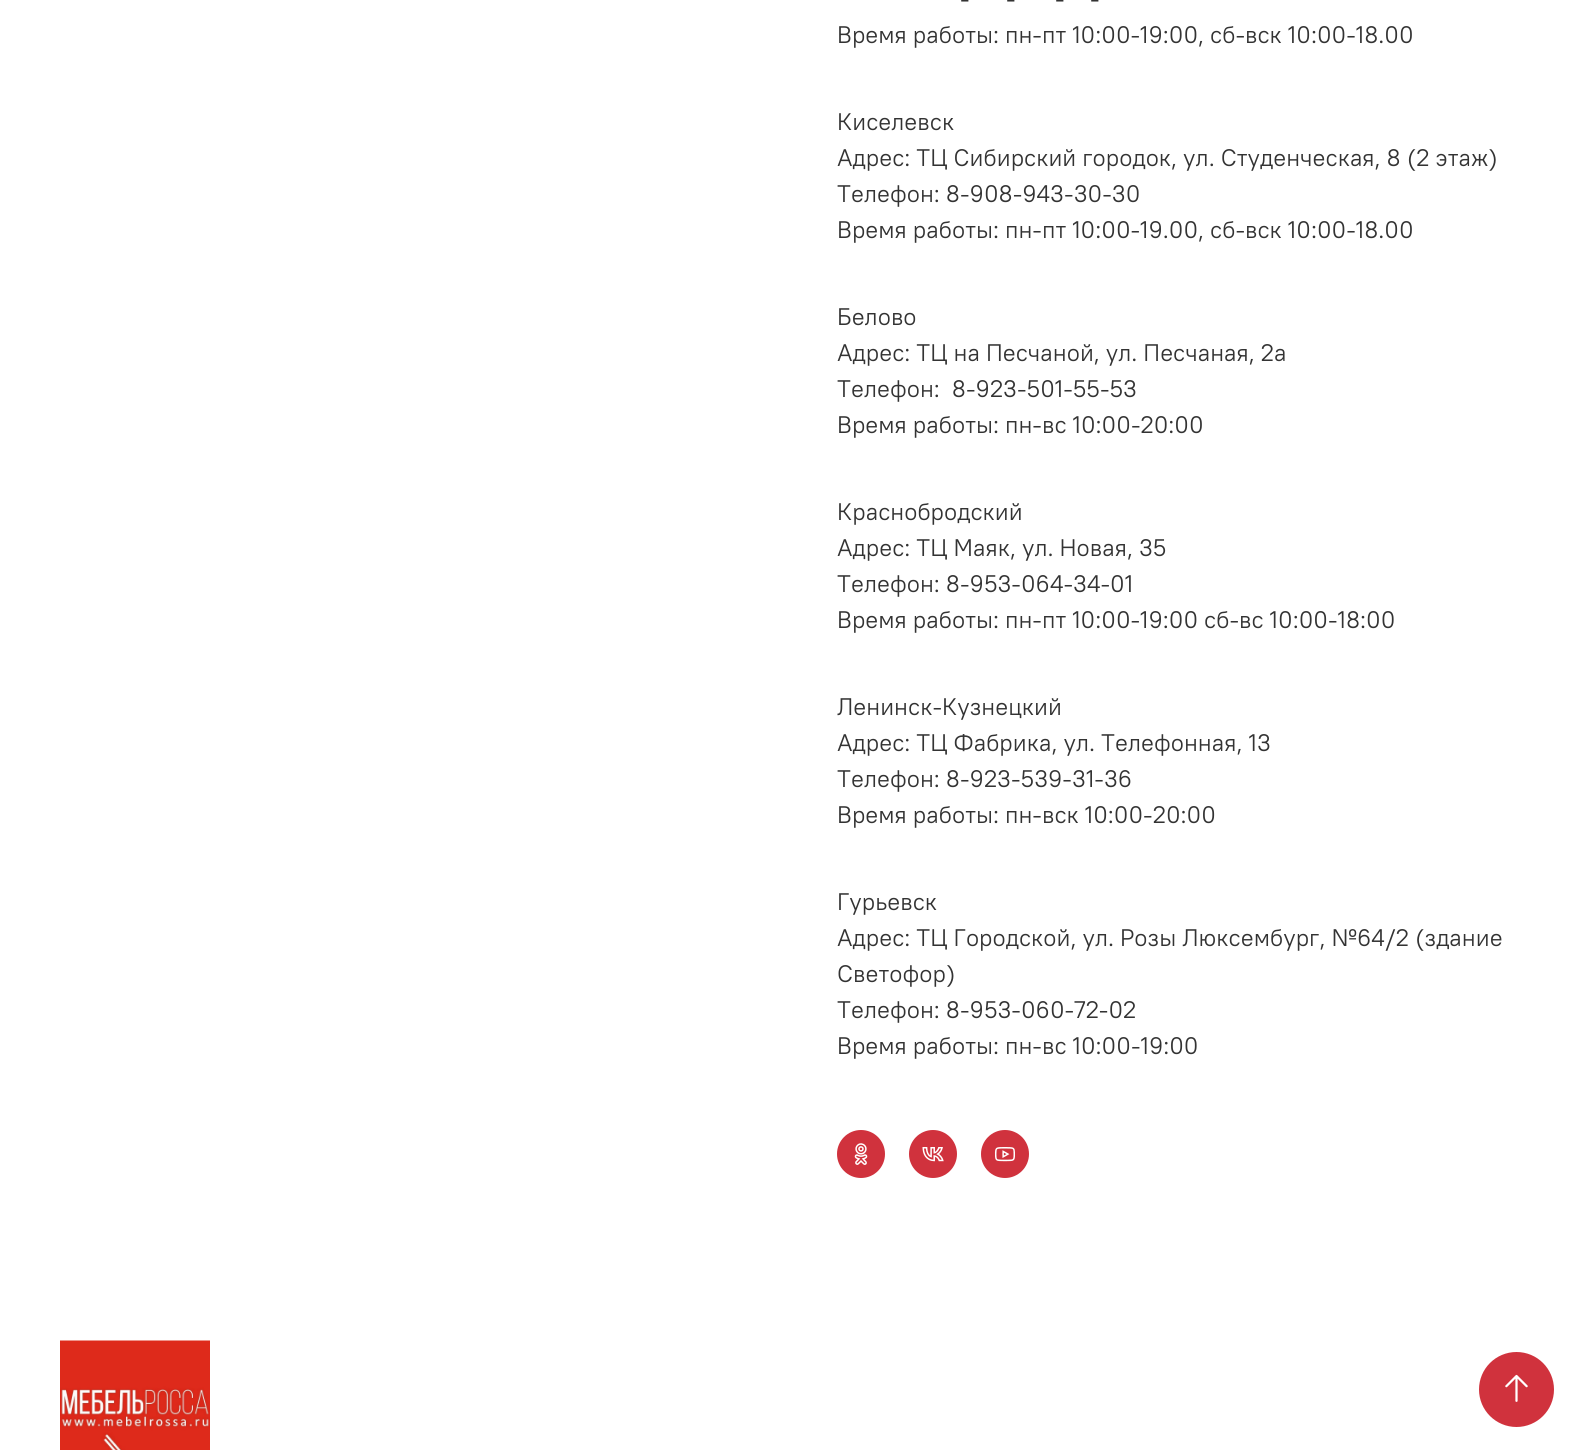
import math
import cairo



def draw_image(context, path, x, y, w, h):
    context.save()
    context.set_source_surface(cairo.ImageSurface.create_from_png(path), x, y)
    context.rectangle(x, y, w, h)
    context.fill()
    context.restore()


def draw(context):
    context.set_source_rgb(1, 1, 1)
    context.paint()
    context.set_source_rgb(208 / 255, 50 / 255, 61 / 255)
    context.arc(861, 1154, 24, 0, 2 * math.pi)
    context.fill()
    draw_image(context, "images/1.png", 854, 1143, 14, 22)
    context.arc(933, 1154, 24, 0, 2 * math.pi)
    context.fill()
    draw_image(context, "images/2.png", 922, 1147, 22, 15)
    context.arc(1005, 1154, 24, 0, 2 * math.pi)
    context.fill()
    draw_image(context, "images/3.png", 994, 1147, 21, 15)
    draw_image(context, "images/4.png", 60, 1340, 150, 110)
    context.arc(1516.5, 1389.5, 36.5, 0, 2 * math.pi)
    context.fill_preserve()
    context.stroke()
    draw_image(context, "images/5.png", 1505, 1374, 23, 28)
    context.select_font_face("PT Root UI")
    context.set_font_size(24)
    context.set_source_rgb(51 / 255, 51 / 255, 51 / 255)
    context.move_to(960, 7)
    context.show_text("-")
    context.move_to(1006, 7)
    context.show_text("-")
    context.move_to(1055, 7)
    context.show_text("-")
    context.move_to(1090, 7)
    context.show_text("-")
    context.move_to(837, 43)
    context.show_text("Время работы: пн-пт 10:00-19:00, сб-вск 10:00-18.00")
    context.move_to(837, 130)
    context.show_text("Киселевск")
    context.move_to(837, 166)
    context.show_text("Адрес: ТЦ Сибирский городок, ул. Студенческая, 8 (2 этаж)")
    context.move_to(837, 202)
    context.show_text("Телефон: 8-908-943-30-30")
    context.move_to(837, 238)
    context.show_text("Время работы: пн-пт 10:00-19.00, сб-вск 10:00-18.00")
    context.move_to(837, 325)
    context.show_text("Белово")
    context.move_to(837, 361)
    context.show_text("Адрес: ТЦ на Песчаной, ул. Песчаная, 2а")
    context.move_to(837, 397)
    context.show_text("Телефон:  8-923-501-55-53")
    context.move_to(837, 433)
    context.show_text("Время работы: пн-вс 10:00-20:00")
    context.move_to(837, 520)
    context.show_text("Краснобродский")
    context.move_to(837, 556)
    context.show_text("Адрес: ТЦ Маяк, ул. Новая, 35")
    context.move_to(837, 592)
    context.show_text("Телефон: 8-953-064-34-01")
    context.move_to(837, 628)
    context.show_text("Время работы: пн-пт 10:00-19:00 сб-вс 10:00-18:00")
    context.move_to(837, 715)
    context.show_text("Ленинск-Кузнецкий")
    context.move_to(837, 751)
    context.show_text("Адрес: ТЦ Фабрика, ул. Телефонная, 13")
    context.move_to(837, 787)
    context.show_text("Телефон: 8-923-539-31-36")
    context.move_to(837, 823)
    context.show_text("Время работы: пн-вск 10:00-20:00")
    context.move_to(837, 910)
    context.show_text("Гурьевск")
    context.move_to(837, 946)
    context.show_text("Адрес: ТЦ Городской, ул. Розы Люксембург, №64/2 (здание")
    context.move_to(837, 982)
    context.show_text("Светофор)")
    context.move_to(837, 1018)
    context.show_text("Телефон: 8-953-060-72-02")
    context.move_to(837, 1054)
    context.show_text("Время работы: пн-вс 10:00-19:00")


surface = cairo.ImageSurface(cairo.Format.RGB24, 1578, 1450)
context = cairo.Context(surface)
options = cairo.FontOptions()
options.set_hint_metrics(cairo.HintMetrics.OFF)
options.set_hint_style(cairo.HintStyle.NONE)
context.set_font_options(options)
context.set_miter_limit(4)
draw(context)
surface.write_to_png("out.png")
